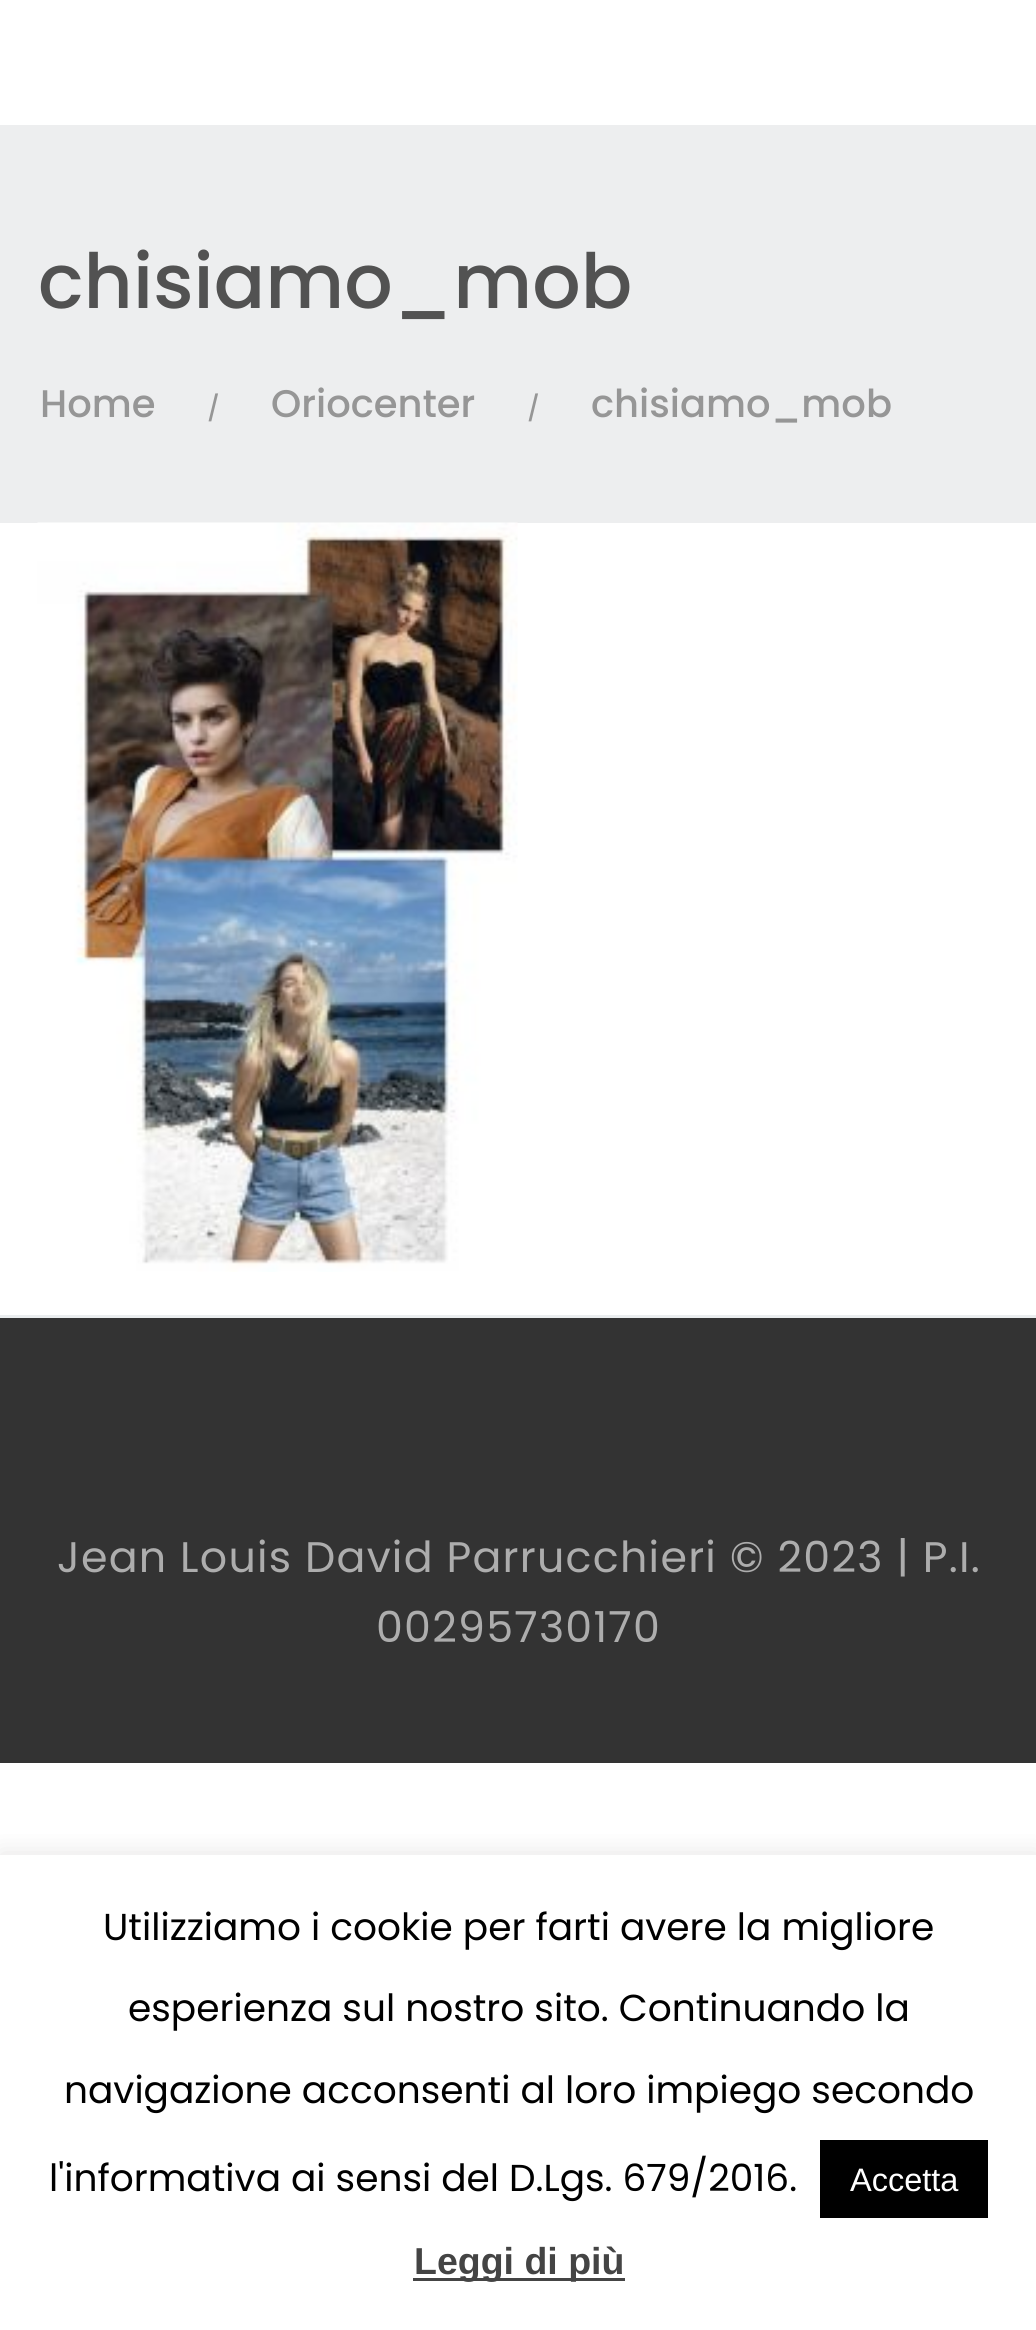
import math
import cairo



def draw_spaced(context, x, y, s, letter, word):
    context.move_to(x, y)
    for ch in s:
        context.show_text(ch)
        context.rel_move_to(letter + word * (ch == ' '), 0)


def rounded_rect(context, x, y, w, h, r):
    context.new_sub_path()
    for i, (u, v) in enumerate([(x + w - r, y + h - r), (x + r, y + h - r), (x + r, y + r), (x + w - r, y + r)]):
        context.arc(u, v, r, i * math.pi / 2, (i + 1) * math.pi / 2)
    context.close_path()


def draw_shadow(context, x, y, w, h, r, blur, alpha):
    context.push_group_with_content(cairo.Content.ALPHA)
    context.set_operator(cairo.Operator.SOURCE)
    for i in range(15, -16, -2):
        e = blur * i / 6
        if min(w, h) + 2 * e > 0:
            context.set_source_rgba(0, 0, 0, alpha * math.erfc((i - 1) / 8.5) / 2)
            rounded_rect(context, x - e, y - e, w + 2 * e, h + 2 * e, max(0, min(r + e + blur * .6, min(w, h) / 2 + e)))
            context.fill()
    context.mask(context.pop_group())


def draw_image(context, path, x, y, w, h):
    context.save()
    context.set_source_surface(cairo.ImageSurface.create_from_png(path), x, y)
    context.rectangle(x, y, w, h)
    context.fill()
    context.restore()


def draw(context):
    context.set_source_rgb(1, 1, 1)
    context.paint()
    context.set_source_rgb(237 / 255, 238 / 255, 239 / 255)
    context.rectangle(0, 125, 1036, 398)
    context.fill()
    draw_image(context, "images/1.png", 37, 522, 481, 750)
    context.set_source_rgb(234 / 255, 237 / 255, 239 / 255)
    context.rectangle(0, 1315, 1036, 3)
    context.fill()
    context.set_source_rgb(51 / 255, 51 / 255, 51 / 255)
    context.rectangle(0, 1318, 1036, 445)
    context.fill()
    context.save()
    context.rectangle(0, 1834, 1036, 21)
    context.clip()
    context.set_source_rgb(172 / 255, 171 / 255, 171 / 255)
    draw_shadow(context, 0, 1853, 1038, 475, 0, 12.5, 0.3)
    context.restore()
    context.set_source_rgb(0, 0, 0)
    context.rectangle(820, 2140, 168, 78)
    context.fill()
    context.set_source_rgb(68 / 255, 68 / 255, 68 / 255)
    context.rectangle(413, 2278, 212, 3)
    context.fill()
    context.select_font_face("Poppins Medium")
    context.set_font_size(76)
    context.set_source_rgb(82 / 255, 82 / 255, 82 / 255)
    context.move_to(38, 308)
    context.show_text("chisiamo_mob")
    context.set_font_size(38.5)
    context.set_source_rgb(150 / 255, 150 / 255, 150 / 255)
    context.move_to(40, 417)
    context.show_text("Home")
    context.set_font_size(25)
    context.move_to(207, 417)
    context.show_text("/")
    context.set_font_size(38.5)
    context.move_to(271, 417)
    context.show_text("Oriocenter")
    context.set_font_size(25)
    context.move_to(527, 417)
    context.show_text("/")
    context.set_font_size(38.5)
    context.move_to(591, 417)
    context.show_text("chisiamo_mob")
    context.select_font_face("Poppins")
    context.set_font_size(42.75)
    context.set_source_rgb(173 / 255, 173 / 255, 173 / 255)
    draw_spaced(context, 57, 1572, "Jean Louis David Parrucchieri © 2023 | P.I.", 1.25, 0)
    draw_spaced(context, 376, 1642, "00295730170", 1.25, 0)
    context.set_font_size(37.5)
    context.set_source_rgb(0, 0, 0)
    context.move_to(103, 1940)
    context.show_text("Utilizziamo i cookie per farti avere la migliore")
    context.move_to(128, 2021)
    context.show_text("esperienza sul nostro sito. Continuando la")
    context.move_to(64, 2103)
    context.show_text("navigazione acconsenti al loro impiego secondo")
    context.move_to(49, 2191)
    context.show_text("l'informativa ai sensi del D.Lgs. 679/2016.")
    context.select_font_face("Liberation Sans")
    context.set_font_size(32.5)
    context.set_source_rgb(1, 1, 1)
    context.move_to(850, 2191)
    context.show_text("Accetta")
    context.select_font_face("Liberation Sans", cairo.FontSlant.NORMAL, cairo.FontWeight.BOLD)
    context.set_font_size(37.5)
    context.set_source_rgb(68 / 255, 68 / 255, 68 / 255)
    context.move_to(414, 2274)
    context.show_text("Leggi di più")


surface = cairo.ImageSurface(cairo.Format.RGB24, 1036, 2330)
context = cairo.Context(surface)
options = cairo.FontOptions()
options.set_hint_metrics(cairo.HintMetrics.OFF)
options.set_hint_style(cairo.HintStyle.NONE)
context.set_font_options(options)
context.set_miter_limit(4)
draw(context)
surface.write_to_png("out.png")
